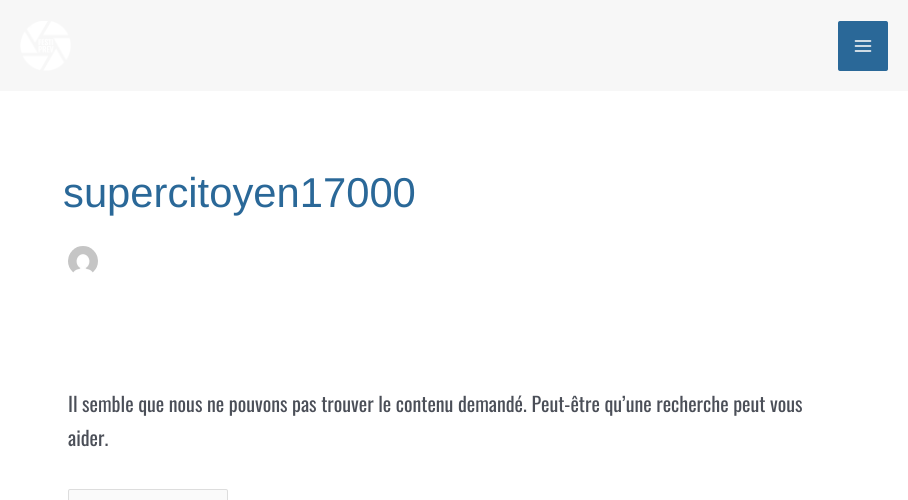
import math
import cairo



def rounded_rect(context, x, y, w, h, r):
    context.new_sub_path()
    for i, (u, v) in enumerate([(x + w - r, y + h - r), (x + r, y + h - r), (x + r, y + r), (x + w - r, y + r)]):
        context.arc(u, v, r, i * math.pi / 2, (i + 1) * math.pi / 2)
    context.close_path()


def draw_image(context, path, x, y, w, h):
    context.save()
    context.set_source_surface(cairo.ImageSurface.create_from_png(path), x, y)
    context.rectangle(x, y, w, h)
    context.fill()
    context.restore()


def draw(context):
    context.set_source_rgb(1, 1, 1)
    context.paint()
    context.set_source_rgb(247 / 255, 247 / 255, 247 / 255)
    context.rectangle(0, 0, 908, 91)
    context.fill()
    draw_image(context, "images/1.png", 20, 21, 51, 50)
    context.set_source_rgb(42 / 255, 104 / 255, 152 / 255)
    rounded_rect(context, 838, 21, 50, 50, 2)
    context.fill()
    draw_image(context, "images/2.png", 854, 40, 18, 12)
    draw_image(context, "images/3.png", 68, 246, 30, 27)
    context.set_source_rgb(250 / 255, 250 / 255, 250 / 255)
    rounded_rect(context, 68.5, 489.5, 159, 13, 1.5)
    context.fill_preserve()
    context.set_source_rgb(221 / 255, 221 / 255, 221 / 255)
    context.set_line_width(1)
    context.stroke()
    context.select_font_face("Liberation Sans")
    context.set_font_size(41.75)
    context.set_source_rgb(42 / 255, 104 / 255, 152 / 255)
    context.move_to(63, 207)
    context.show_text("supercitoyen17000")
    context.select_font_face("Oswald")
    context.set_font_size(20)
    context.set_source_rgb(75 / 255, 79 / 255, 88 / 255)
    context.move_to(68, 412)
    context.show_text("Il semble que nous ne pouvons pas trouver le contenu demandé. Peut-être qu’une recherche peut vous")
    context.move_to(68, 446)
    context.show_text("aider.")


surface = cairo.ImageSurface(cairo.Format.RGB24, 908, 500)
context = cairo.Context(surface)
options = cairo.FontOptions()
options.set_hint_metrics(cairo.HintMetrics.OFF)
options.set_hint_style(cairo.HintStyle.NONE)
context.set_font_options(options)
context.set_miter_limit(4)
draw(context)
surface.write_to_png("out.png")
